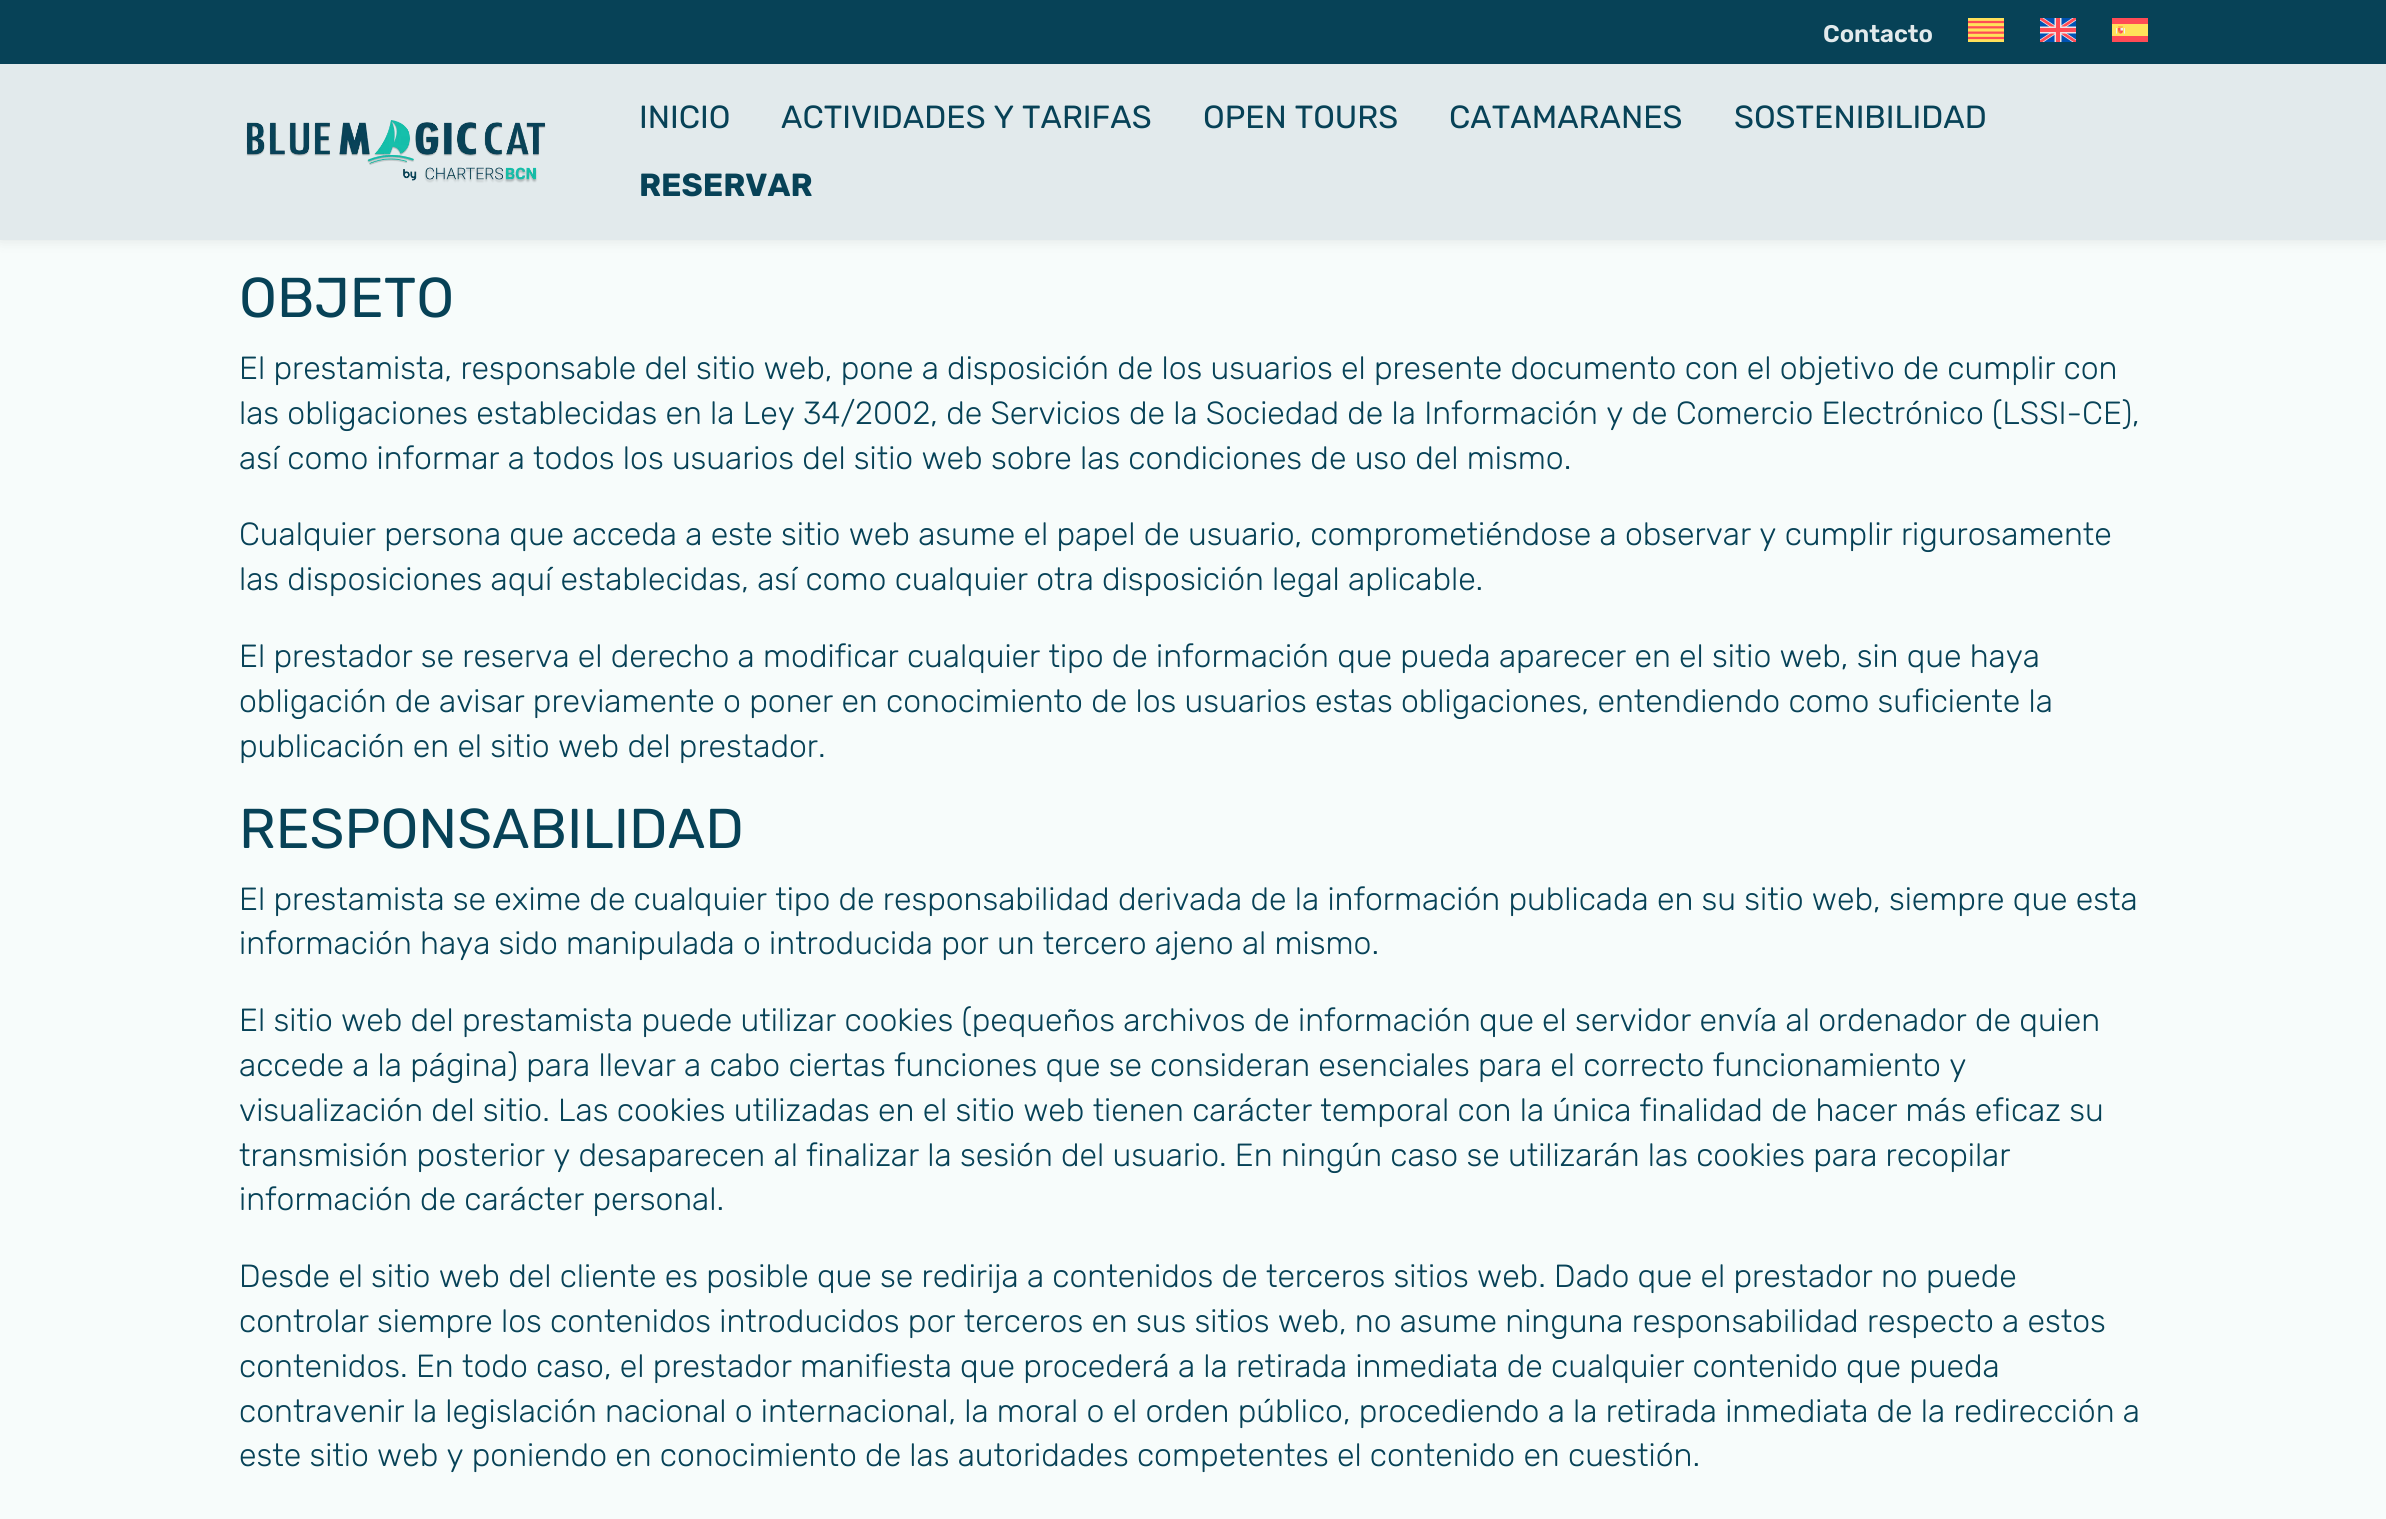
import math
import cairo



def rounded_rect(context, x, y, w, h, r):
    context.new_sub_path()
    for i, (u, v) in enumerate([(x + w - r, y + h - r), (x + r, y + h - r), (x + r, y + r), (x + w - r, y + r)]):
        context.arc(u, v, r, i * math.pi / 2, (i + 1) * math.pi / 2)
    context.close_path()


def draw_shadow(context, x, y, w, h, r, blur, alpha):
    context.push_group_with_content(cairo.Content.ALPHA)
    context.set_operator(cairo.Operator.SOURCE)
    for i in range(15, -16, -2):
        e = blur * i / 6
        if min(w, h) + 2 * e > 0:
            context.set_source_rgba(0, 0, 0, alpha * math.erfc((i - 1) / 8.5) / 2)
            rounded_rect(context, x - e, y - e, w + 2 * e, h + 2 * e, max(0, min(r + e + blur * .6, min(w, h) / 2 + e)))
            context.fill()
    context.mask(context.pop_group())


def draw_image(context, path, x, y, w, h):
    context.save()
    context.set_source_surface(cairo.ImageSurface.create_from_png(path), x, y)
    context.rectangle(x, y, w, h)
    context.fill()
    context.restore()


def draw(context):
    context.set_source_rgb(247 / 255, 252 / 255, 251 / 255)
    context.paint()
    context.set_source_rgb(0, 0, 0)
    draw_shadow(context, 0, 64, 2386, 176, 0, 7, 0.1)
    context.set_source_rgb(7 / 255, 66 / 255, 87 / 255)
    context.rectangle(0, 0, 2386, 64)
    context.fill()
    draw_image(context, "images/1.png", 1968, 18, 36, 24)
    draw_image(context, "images/2.png", 2040, 18, 36, 24)
    draw_image(context, "images/3.png", 2112, 18, 36, 24)
    context.set_source_rgb(226 / 255, 234 / 255, 236 / 255)
    context.rectangle(0, 64, 2386, 176)
    context.fill()
    draw_image(context, "images/4.png", 246, 120, 300, 63)
    context.select_font_face("Rubik SemiBold")
    context.set_font_size(24)
    context.move_to(1823, 42)
    context.show_text("Contacto")
    context.select_font_face("Rubik")
    context.set_font_size(32)
    context.set_source_rgb(7 / 255, 66 / 255, 87 / 255)
    context.move_to(639, 128)
    context.show_text("INICIO")
    context.move_to(781, 128)
    context.show_text("ACTIVIDADES Y TARIFAS")
    context.move_to(1203, 128)
    context.show_text("OPEN TOURS")
    context.move_to(1449, 128)
    context.show_text("CATAMARANES")
    context.move_to(1734, 128)
    context.show_text("SOSTENIBILIDAD")
    context.select_font_face("Rubik", cairo.FontSlant.NORMAL, cairo.FontWeight.BOLD)
    context.move_to(639, 196)
    context.show_text("RESERVAR")
    context.select_font_face("Rubik")
    context.set_font_size(56)
    context.move_to(239, 317)
    context.show_text("OBJETO")
    context.select_font_face("Rubik Light")
    context.set_font_size(32)
    context.move_to(239, 379)
    context.show_text("El prestamista, responsable del sitio web, pone a disposición de los usuarios el presente documento con el objetivo de cumplir con")
    context.move_to(239, 424)
    context.show_text("las obligaciones establecidas en la Ley 34/2002, de Servicios de la Sociedad de la Información y de Comercio Electrónico (LSSI-CE),")
    context.move_to(239, 469)
    context.show_text("así como informar a todos los usuarios del sitio web sobre las condiciones de uso del mismo.")
    context.move_to(239, 545)
    context.show_text("Cualquier persona que acceda a este sitio web asume el papel de usuario, comprometiéndose a observar y cumplir rigurosamente")
    context.move_to(239, 590)
    context.show_text("las disposiciones aquí establecidas, así como cualquier otra disposición legal aplicable.")
    context.move_to(239, 667)
    context.show_text("El prestador se reserva el derecho a modificar cualquier tipo de información que pueda aparecer en el sitio web, sin que haya")
    context.move_to(239, 712)
    context.show_text("obligación de avisar previamente o poner en conocimiento de los usuarios estas obligaciones, entendiendo como suficiente la")
    context.move_to(239, 757)
    context.show_text("publicación en el sitio web del prestador.")
    context.select_font_face("Rubik")
    context.set_font_size(56)
    context.move_to(239, 848)
    context.show_text("RESPONSABILIDAD")
    context.select_font_face("Rubik Light")
    context.set_font_size(32)
    context.move_to(239, 910)
    context.show_text("El prestamista se exime de cualquier tipo de responsabilidad derivada de la información publicada en su sitio web, siempre que esta")
    context.move_to(239, 954)
    context.show_text("información haya sido manipulada o introducida por un tercero ajeno al mismo.")
    context.move_to(239, 1031)
    context.show_text("El sitio web del prestamista puede utilizar cookies (pequeños archivos de información que el servidor envía al ordenador de quien")
    context.move_to(239, 1076)
    context.show_text("accede a la página) para llevar a cabo ciertas funciones que se consideran esenciales para el correcto funcionamiento y")
    context.move_to(239, 1121)
    context.show_text("visualización del sitio. Las cookies utilizadas en el sitio web tienen carácter temporal con la única finalidad de hacer más eficaz su")
    context.move_to(239, 1166)
    context.show_text("transmisión posterior y desaparecen al finalizar la sesión del usuario. En ningún caso se utilizarán las cookies para recopilar")
    context.move_to(239, 1210)
    context.show_text("información de carácter personal.")
    context.move_to(239, 1287)
    context.show_text("Desde el sitio web del cliente es posible que se redirija a contenidos de terceros sitios web. Dado que el prestador no puede")
    context.move_to(239, 1332)
    context.show_text("controlar siempre los contenidos introducidos por terceros en sus sitios web, no asume ninguna responsabilidad respecto a estos")
    context.move_to(239, 1377)
    context.show_text("contenidos. En todo caso, el prestador manifiesta que procederá a la retirada inmediata de cualquier contenido que pueda")
    context.move_to(239, 1422)
    context.show_text("contravenir la legislación nacional o internacional, la moral o el orden público, procediendo a la retirada inmediata de la redirección a")
    context.move_to(239, 1466)
    context.show_text("este sitio web y poniendo en conocimiento de las autoridades competentes el contenido en cuestión.")


surface = cairo.ImageSurface(cairo.Format.RGB24, 2386, 1519)
context = cairo.Context(surface)
options = cairo.FontOptions()
options.set_hint_metrics(cairo.HintMetrics.OFF)
options.set_hint_style(cairo.HintStyle.NONE)
context.set_font_options(options)
context.set_miter_limit(4)
draw(context)
surface.write_to_png("out.png")
